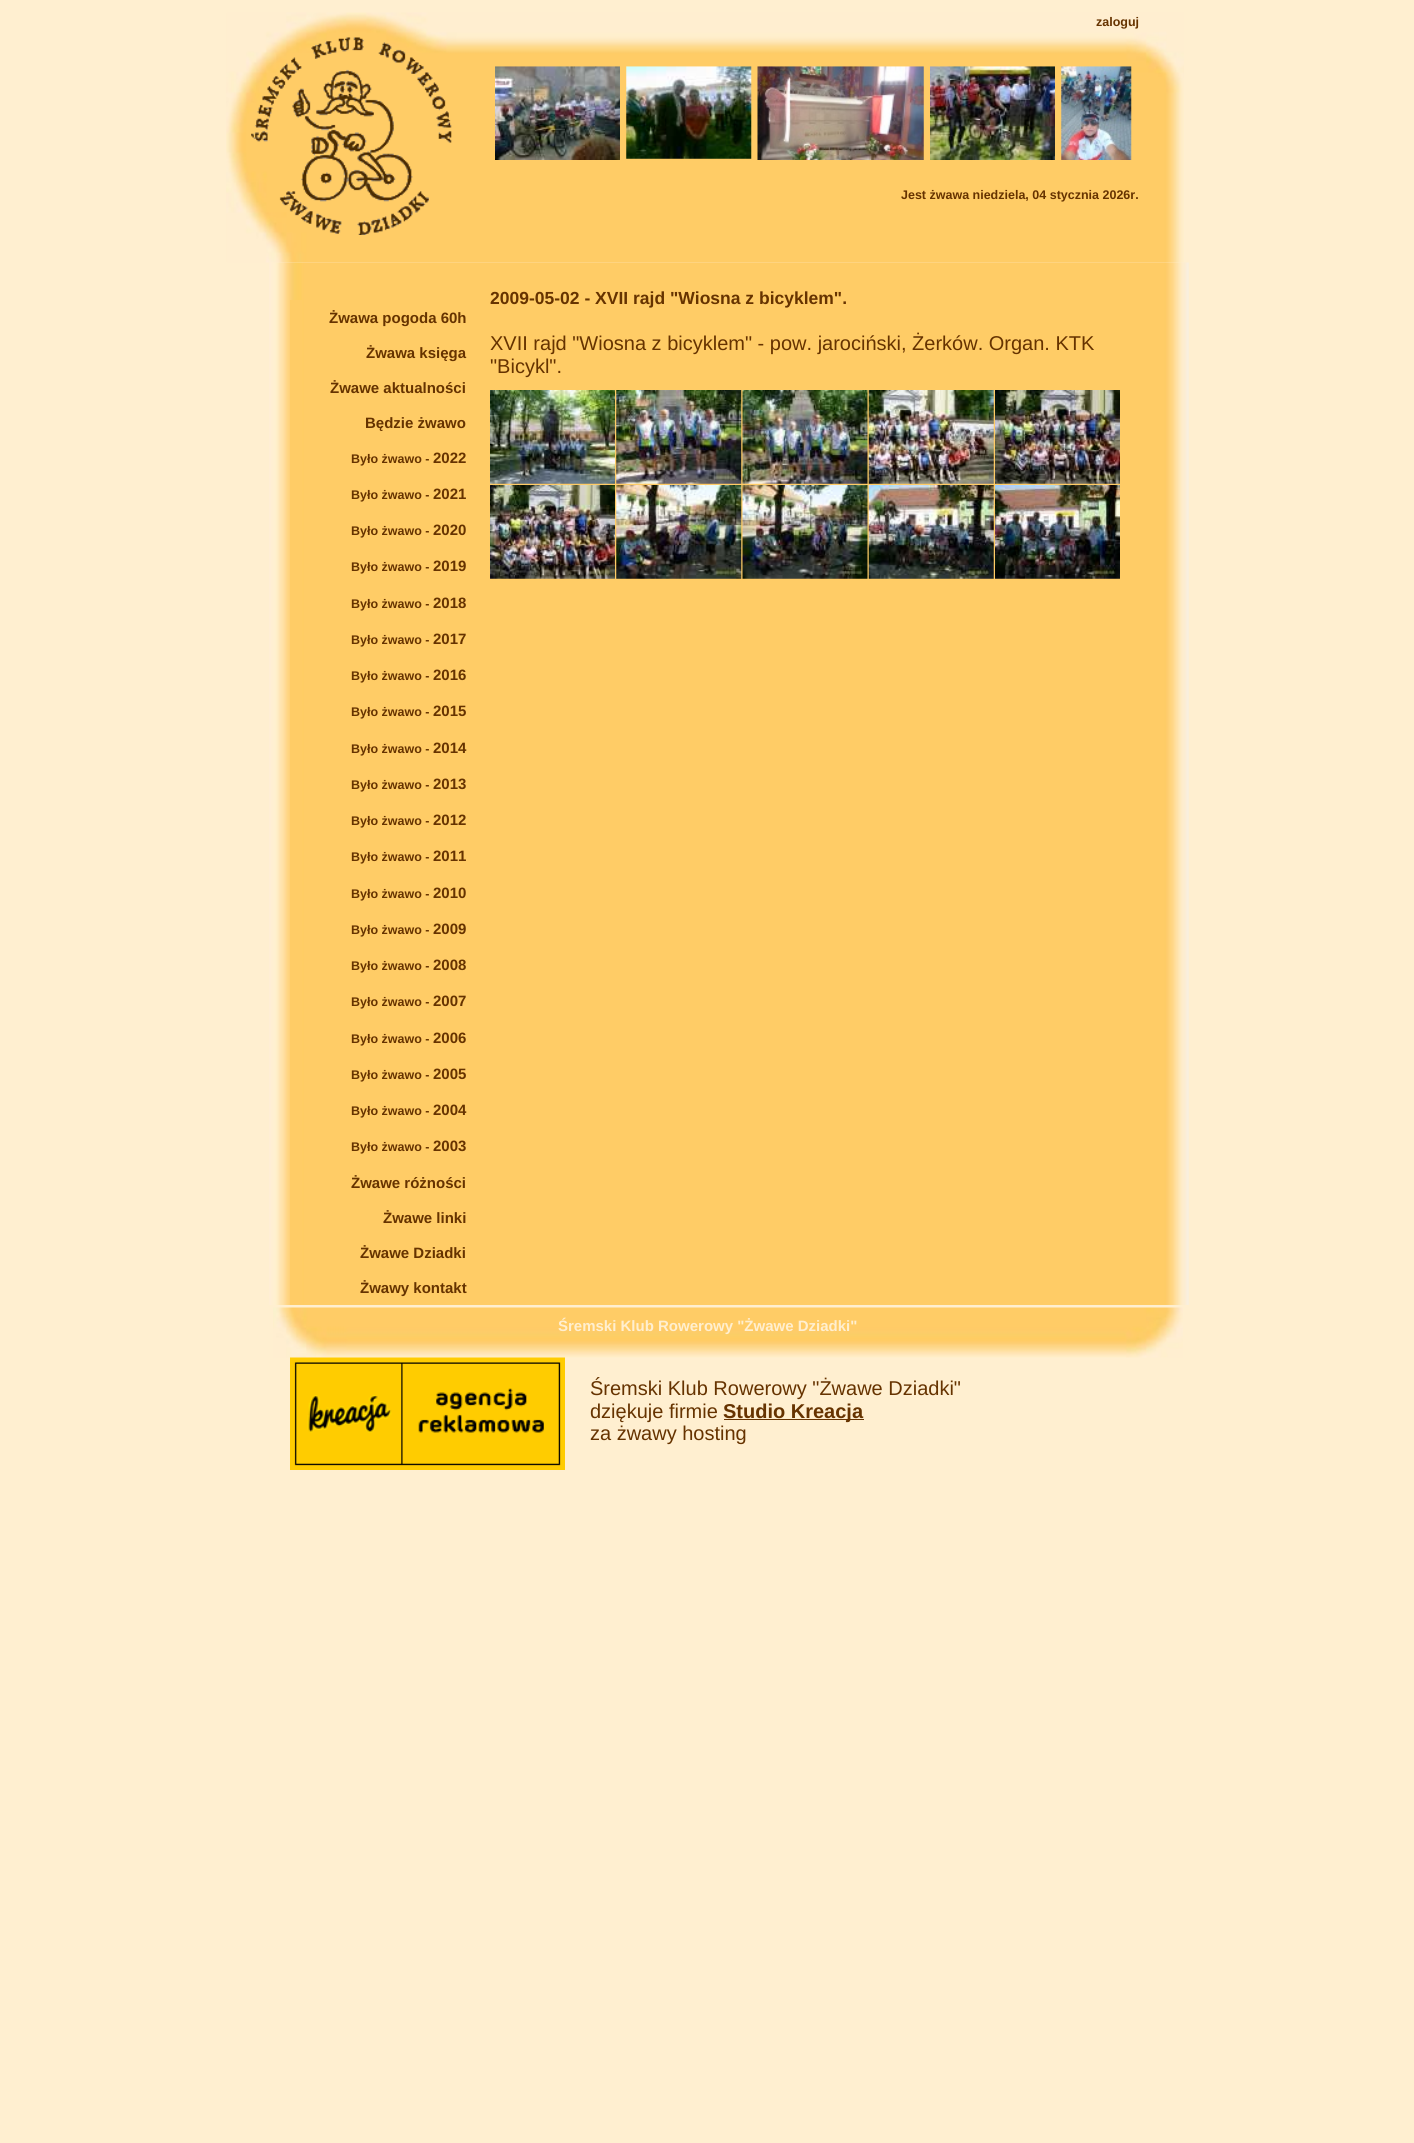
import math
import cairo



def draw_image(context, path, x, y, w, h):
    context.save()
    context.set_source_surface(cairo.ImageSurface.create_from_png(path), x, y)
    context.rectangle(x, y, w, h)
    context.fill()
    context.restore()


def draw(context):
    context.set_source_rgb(1, 239 / 255, 208 / 255)
    context.paint()
    draw_image(context, "images/1.png", 226, 12, 958, 251)
    draw_image(context, "images/2.png", 251, 37, 201, 198)
    draw_image(context, "images/3.png", 495, 66, 125, 94)
    draw_image(context, "images/4.png", 626, 66, 126, 93)
    draw_image(context, "images/5.png", 757, 66, 167, 94)
    draw_image(context, "images/6.png", 930, 66, 125, 94)
    draw_image(context, "images/7.png", 1061, 66, 71, 94)
    draw_image(context, "images/8.png", 269, 262, 920, 1043)
    context.set_source_rgb(1, 204 / 255, 102 / 255)
    context.rectangle(290, 300, 12, 1005)
    context.fill()
    draw_image(context, "images/9.png", 490, 390, 125, 94)
    draw_image(context, "images/10.png", 616, 390, 126, 94)
    draw_image(context, "images/11.png", 742, 390, 126, 94)
    draw_image(context, "images/12.png", 868, 390, 126, 94)
    draw_image(context, "images/13.png", 995, 390, 125, 94)
    draw_image(context, "images/14.png", 490, 485, 125, 94)
    draw_image(context, "images/15.png", 616, 485, 126, 94)
    draw_image(context, "images/16.png", 742, 485, 126, 94)
    draw_image(context, "images/17.png", 868, 485, 126, 94)
    draw_image(context, "images/18.png", 995, 485, 125, 94)
    draw_image(context, "images/19.png", 273, 1307, 910, 51)
    draw_image(context, "images/20.png", 290, 1357, 275, 113)
    context.set_source_rgb(102 / 255, 51 / 255, 0)
    context.rectangle(724, 1419, 140, 1)
    context.fill()
    context.select_font_face("Liberation Sans", cairo.FontSlant.NORMAL, cairo.FontWeight.BOLD)
    context.set_font_size(12.5)
    context.move_to(1096, 26)
    context.show_text("zaloguj")
    context.move_to(901, 199)
    context.show_text("Jest żwawa niedziela, 04 stycznia 2026r.")
    context.set_font_size(15)
    context.move_to(329, 323)
    context.show_text("Żwawa pogoda 60h")
    context.move_to(366, 358)
    context.show_text("Żwawa księga")
    context.move_to(330, 393)
    context.show_text("Żwawe aktualności")
    context.move_to(365, 428)
    context.show_text("Będzie żwawo")
    context.set_font_size(12.5)
    context.move_to(351, 463)
    context.show_text("Było żwawo -")
    context.set_font_size(15)
    context.move_to(433, 463)
    context.show_text("2022")
    context.set_font_size(12.5)
    context.move_to(351, 499)
    context.show_text("Było żwawo -")
    context.set_font_size(15)
    context.move_to(433, 499)
    context.show_text("2021")
    context.set_font_size(12.5)
    context.move_to(351, 535)
    context.show_text("Było żwawo -")
    context.set_font_size(15)
    context.move_to(433, 535)
    context.show_text("2020")
    context.set_font_size(12.5)
    context.move_to(351, 571)
    context.show_text("Było żwawo -")
    context.set_font_size(15)
    context.move_to(433, 571)
    context.show_text("2019")
    context.set_font_size(12.5)
    context.move_to(351, 608)
    context.show_text("Było żwawo -")
    context.set_font_size(15)
    context.move_to(433, 608)
    context.show_text("2018")
    context.set_font_size(12.5)
    context.move_to(351, 644)
    context.show_text("Było żwawo -")
    context.set_font_size(15)
    context.move_to(433, 644)
    context.show_text("2017")
    context.set_font_size(12.5)
    context.move_to(351, 680)
    context.show_text("Było żwawo -")
    context.set_font_size(15)
    context.move_to(433, 680)
    context.show_text("2016")
    context.set_font_size(12.5)
    context.move_to(351, 716)
    context.show_text("Było żwawo -")
    context.set_font_size(15)
    context.move_to(433, 716)
    context.show_text("2015")
    context.set_font_size(12.5)
    context.move_to(351, 753)
    context.show_text("Było żwawo -")
    context.set_font_size(15)
    context.move_to(433, 753)
    context.show_text("2014")
    context.set_font_size(12.5)
    context.move_to(351, 789)
    context.show_text("Było żwawo -")
    context.set_font_size(15)
    context.move_to(433, 789)
    context.show_text("2013")
    context.set_font_size(12.5)
    context.move_to(351, 825)
    context.show_text("Było żwawo -")
    context.set_font_size(15)
    context.move_to(433, 825)
    context.show_text("2012")
    context.set_font_size(12.5)
    context.move_to(351, 861)
    context.show_text("Było żwawo -")
    context.set_font_size(15)
    context.move_to(433, 861)
    context.show_text("2011")
    context.set_font_size(12.5)
    context.move_to(351, 898)
    context.show_text("Było żwawo -")
    context.set_font_size(15)
    context.move_to(433, 898)
    context.show_text("2010")
    context.set_font_size(12.5)
    context.move_to(351, 934)
    context.show_text("Było żwawo -")
    context.set_font_size(15)
    context.move_to(433, 934)
    context.show_text("2009")
    context.set_font_size(12.5)
    context.move_to(351, 970)
    context.show_text("Było żwawo -")
    context.set_font_size(15)
    context.move_to(433, 970)
    context.show_text("2008")
    context.set_font_size(12.5)
    context.move_to(351, 1006)
    context.show_text("Było żwawo -")
    context.set_font_size(15)
    context.move_to(433, 1006)
    context.show_text("2007")
    context.set_font_size(12.5)
    context.move_to(351, 1043)
    context.show_text("Było żwawo -")
    context.set_font_size(15)
    context.move_to(433, 1043)
    context.show_text("2006")
    context.set_font_size(12.5)
    context.move_to(351, 1079)
    context.show_text("Było żwawo -")
    context.set_font_size(15)
    context.move_to(433, 1079)
    context.show_text("2005")
    context.set_font_size(12.5)
    context.move_to(351, 1115)
    context.show_text("Było żwawo -")
    context.set_font_size(15)
    context.move_to(433, 1115)
    context.show_text("2004")
    context.set_font_size(12.5)
    context.move_to(351, 1151)
    context.show_text("Było żwawo -")
    context.set_font_size(15)
    context.move_to(433, 1151)
    context.show_text("2003")
    context.move_to(351, 1188)
    context.show_text("Żwawe różności")
    context.move_to(383, 1223)
    context.show_text("Żwawe linki")
    context.move_to(360, 1258)
    context.show_text("Żwawe Dziadki")
    context.move_to(360, 1293)
    context.show_text("Żwawy kontakt")
    context.set_font_size(17.5)
    context.move_to(490, 304)
    context.show_text("2009-05-02 - XVII rajd \"Wiosna z bicyklem\".")
    context.select_font_face("Liberation Sans")
    context.set_font_size(20)
    context.move_to(490, 350)
    context.show_text("XVII rajd \"Wiosna z bicyklem\" - pow. jarociński, Żerków. Organ. KTK")
    context.move_to(490, 373)
    context.show_text("\"Bicykl\".")
    context.select_font_face("Liberation Sans", cairo.FontSlant.NORMAL, cairo.FontWeight.BOLD)
    context.set_font_size(15)
    context.set_source_rgb(1, 239 / 255, 208 / 255)
    context.move_to(558, 1331)
    context.show_text("Śremski Klub Rowerowy \"Żwawe Dziadki\"")
    context.select_font_face("Liberation Sans")
    context.set_font_size(20)
    context.set_source_rgb(102 / 255, 51 / 255, 0)
    context.move_to(590, 1395)
    context.show_text("Śremski Klub Rowerowy \"Żwawe Dziadki\"")
    context.move_to(590, 1418)
    context.show_text("dziękuje firmie")
    context.select_font_face("Liberation Sans", cairo.FontSlant.NORMAL, cairo.FontWeight.BOLD)
    context.move_to(723, 1418)
    context.show_text("Studio Kreacja")
    context.select_font_face("Liberation Sans")
    context.move_to(590, 1440)
    context.show_text("za żwawy hosting")


surface = cairo.ImageSurface(cairo.Format.RGB24, 1414, 2143)
context = cairo.Context(surface)
options = cairo.FontOptions()
options.set_hint_metrics(cairo.HintMetrics.OFF)
options.set_hint_style(cairo.HintStyle.NONE)
context.set_font_options(options)
context.set_miter_limit(4)
draw(context)
surface.write_to_png("out.png")
